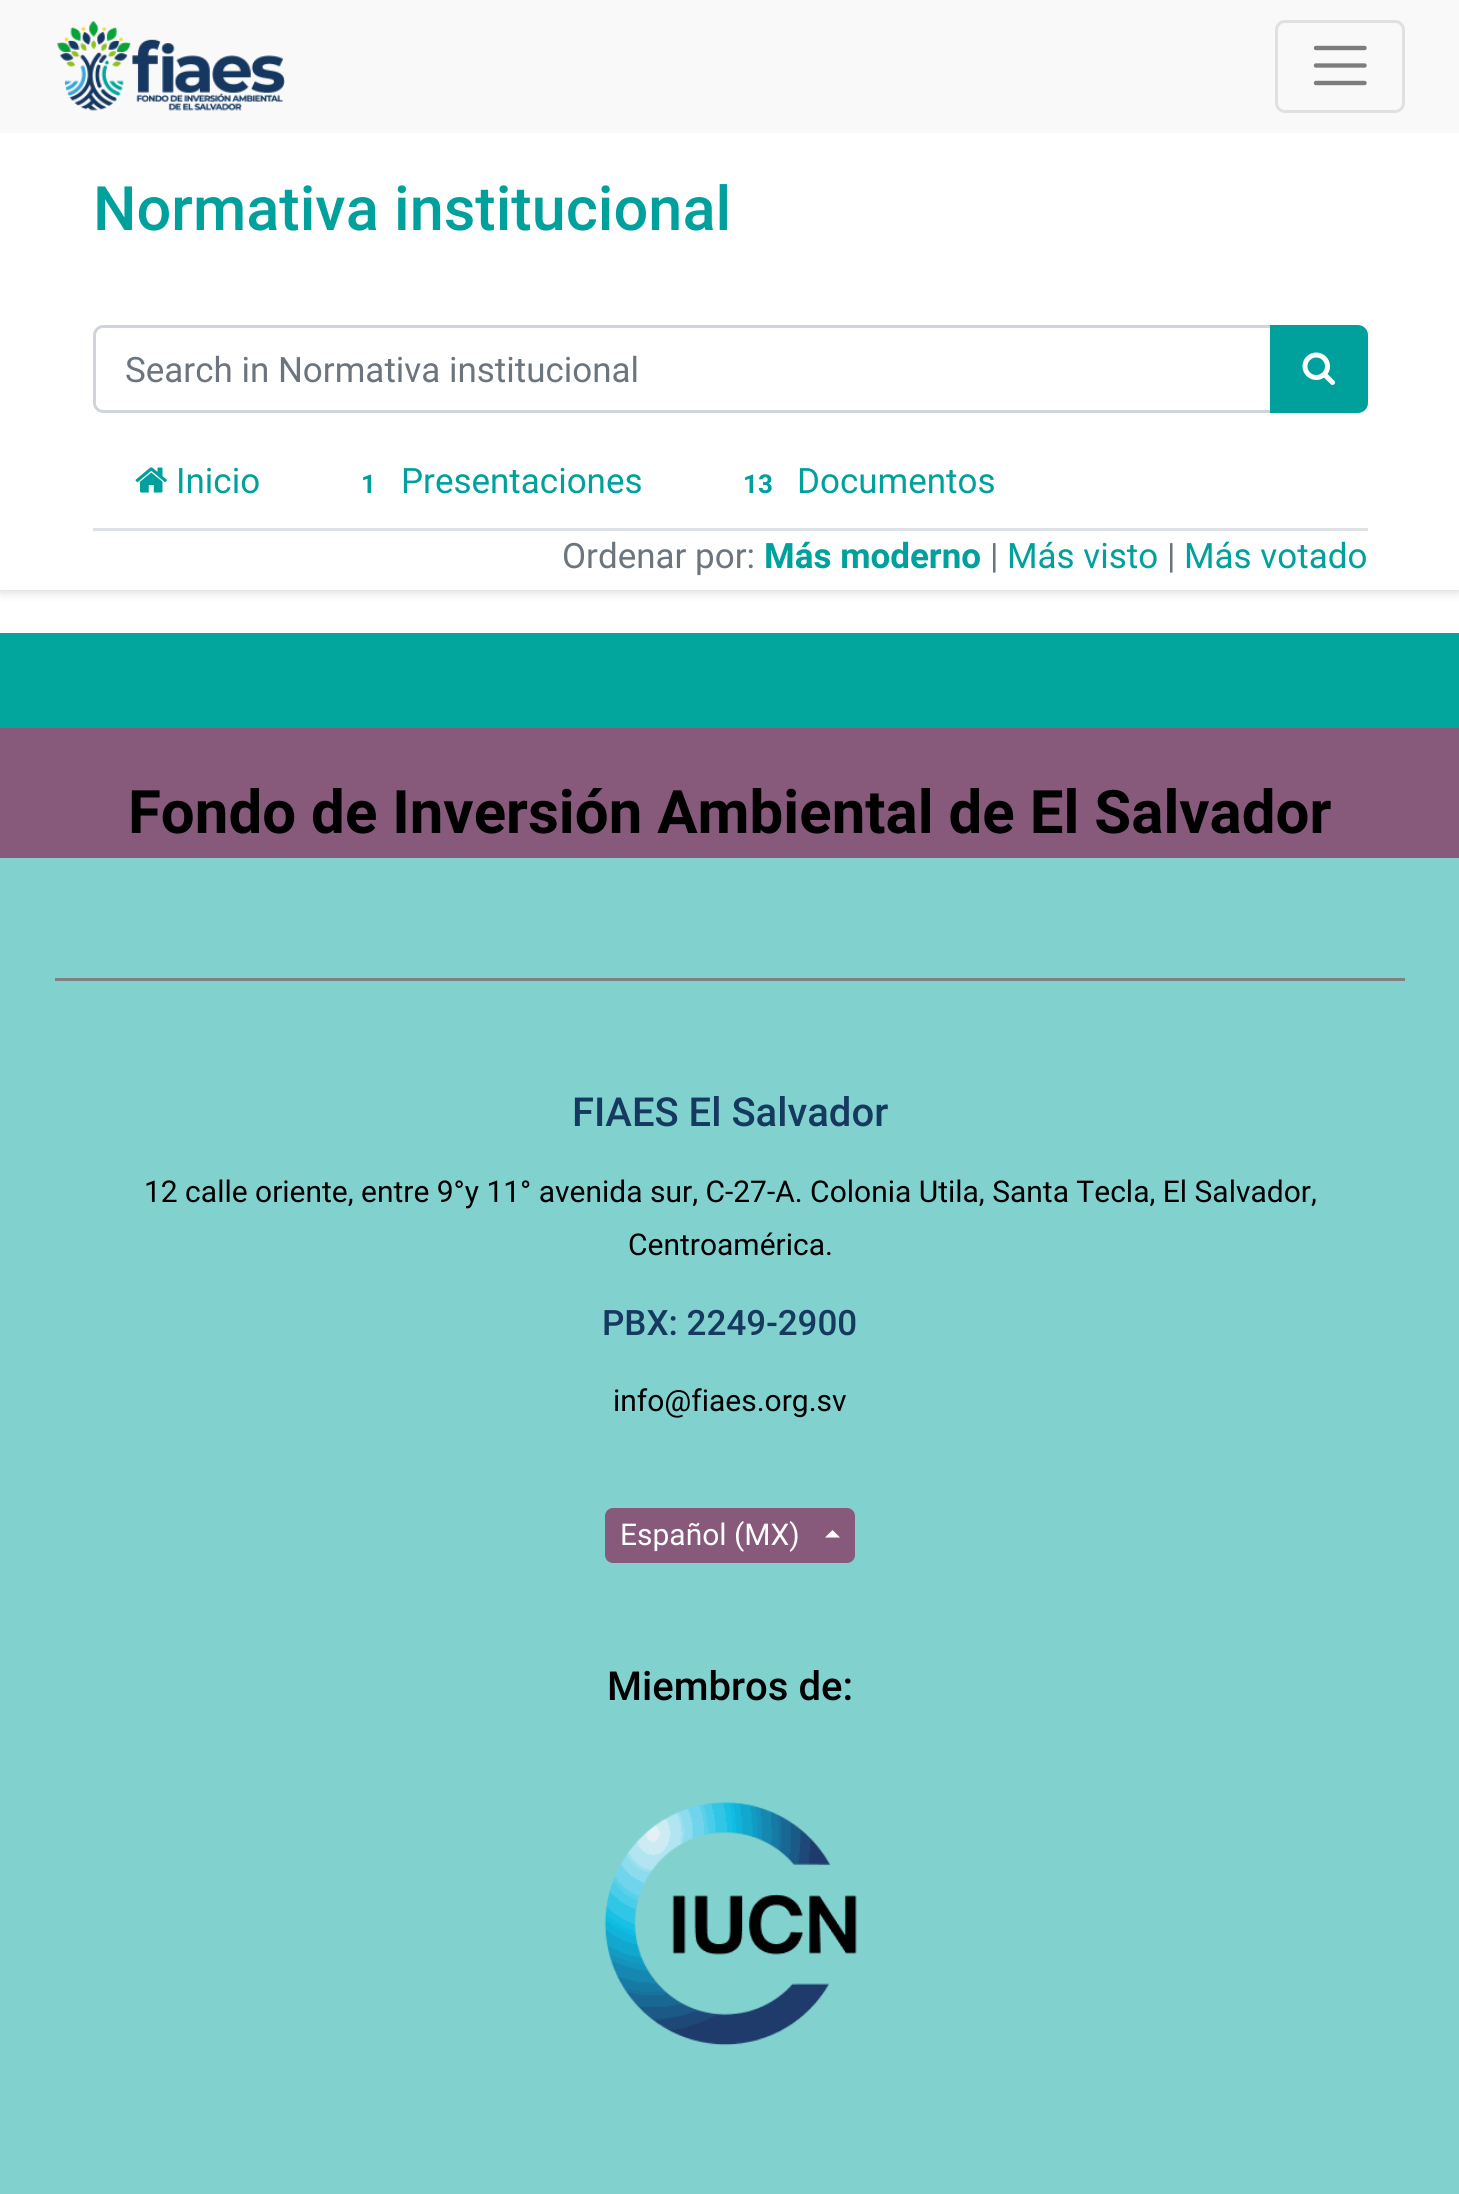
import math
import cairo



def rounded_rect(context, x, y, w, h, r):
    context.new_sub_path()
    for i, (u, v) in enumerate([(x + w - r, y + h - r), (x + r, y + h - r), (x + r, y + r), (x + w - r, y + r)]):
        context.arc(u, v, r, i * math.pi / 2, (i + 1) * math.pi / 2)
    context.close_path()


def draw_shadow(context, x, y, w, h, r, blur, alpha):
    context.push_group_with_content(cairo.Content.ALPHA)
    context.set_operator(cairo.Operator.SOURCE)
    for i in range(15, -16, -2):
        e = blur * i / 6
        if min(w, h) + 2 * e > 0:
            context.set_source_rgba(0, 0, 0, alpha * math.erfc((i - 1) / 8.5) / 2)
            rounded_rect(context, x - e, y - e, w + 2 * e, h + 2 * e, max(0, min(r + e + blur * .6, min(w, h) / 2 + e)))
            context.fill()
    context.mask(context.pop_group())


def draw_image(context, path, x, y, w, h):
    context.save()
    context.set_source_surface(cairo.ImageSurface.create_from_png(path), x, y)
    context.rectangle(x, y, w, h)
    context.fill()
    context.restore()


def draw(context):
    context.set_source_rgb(1, 1, 1)
    context.paint()
    context.save()
    context.rectangle(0, 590, 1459, 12)
    context.clip()
    context.set_source_rgb(204 / 255, 204 / 255, 204 / 255)
    draw_shadow(context, 0, 133, 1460, 457, 0, 6, 1)
    context.restore()
    context.set_source_rgb(249 / 255, 249 / 255, 249 / 255)
    context.rectangle(0, 0, 1459, 133)
    context.fill()
    draw_image(context, "images/1.png", 57, 21, 228, 90)
    rounded_rect(context, 1276.5, 21.5, 127, 90, 8.5)
    context.set_source_rgb(224 / 255, 224 / 255, 224 / 255)
    context.set_line_width(3)
    context.stroke()
    context.new_path()
    context.move_to(1316, 48)
    context.line_to(1364.5, 48)
    context.move_to(1316, 65.5)
    context.line_to(1364.5, 65.5)
    context.move_to(1316, 83)
    context.line_to(1364.5, 83)
    context.set_source_rgb(125 / 255, 125 / 255, 125 / 255)
    context.set_line_width(4.4)
    context.set_line_cap(cairo.LineCap.ROUND)
    context.stroke()
    context.new_path()
    context.move_to(103, 326.5)
    context.line_to(1271.5, 326.5)
    context.line_to(1271.5, 411.5)
    context.line_to(103, 411.5)
    context.curve_to(98.5, 411.5, 94.5, 407.5, 94.5, 403)
    context.line_to(94.5, 335)
    context.curve_to(94.5, 330.5, 98.5, 326.5, 103, 326.5)
    context.close_path()
    context.set_source_rgb(206 / 255, 212 / 255, 218 / 255)
    context.set_line_width(3)
    context.set_line_cap(cairo.LineCap.BUTT)
    context.stroke()
    context.set_source_rgb(0, 160 / 255, 157 / 255)
    context.new_path()
    context.move_to(1271.5, 326.5)
    context.line_to(1358, 326.5)
    context.curve_to(1362.5, 326.5, 1366.5, 330.5, 1366.5, 335)
    context.line_to(1366.5, 403)
    context.curve_to(1366.5, 407.5, 1362.5, 411.5, 1358, 411.5)
    context.line_to(1271.5, 411.5)
    context.close_path()
    context.fill_preserve()
    context.stroke()
    draw_image(context, "images/2.png", 1302, 352, 33, 33)
    context.set_source_rgb(222 / 255, 226 / 255, 230 / 255)
    context.rectangle(93, 528, 1275, 3)
    context.fill()
    draw_image(context, "images/3.png", 135, 467, 32, 26)
    context.set_source_rgb(3 / 255, 166 / 255, 156 / 255)
    context.rectangle(0, 633, 1459, 95)
    context.fill()
    context.set_source_rgb(129 / 255, 209 / 255, 207 / 255)
    context.rectangle(0, 858, 1459, 1336)
    context.fill()
    context.set_source_rgb(135 / 255, 90 / 255, 123 / 255)
    context.rectangle(0, 728, 1459, 130)
    context.fill()
    context.set_source_rgb(128 / 255, 128 / 255, 128 / 255)
    context.rectangle(55, 978, 1350, 3)
    context.fill()
    context.set_source_rgb(135 / 255, 90 / 255, 123 / 255)
    rounded_rect(context, 606.5, 1509.5, 247, 52, 6.5)
    context.fill_preserve()
    context.stroke()
    context.set_source_rgb(1, 1, 1)
    context.new_path()
    context.move_to(840, 1537.5)
    context.line_to(825, 1537.5)
    context.line_to(832.5, 1530)
    context.close_path()
    context.fill()
    draw_image(context, "images/4.png", 604, 1802, 253, 244)
    context.select_font_face("Roboto Medium")
    context.set_font_size(61.25)
    context.set_source_rgb(0, 160 / 255, 157 / 255)
    context.move_to(93, 230)
    context.show_text("Normativa institucional")
    context.select_font_face("Roboto")
    context.set_font_size(35)
    context.set_source_rgb(108 / 255, 117 / 255, 125 / 255)
    context.move_to(125, 382)
    context.show_text("Search in Normativa institucional")
    context.set_source_rgb(0, 160 / 255, 157 / 255)
    context.move_to(176, 493)
    context.show_text("Inicio")
    context.select_font_face("Roboto", cairo.FontSlant.NORMAL, cairo.FontWeight.BOLD)
    context.set_font_size(26)
    context.move_to(361, 493)
    context.show_text("1")
    context.select_font_face("Roboto")
    context.set_font_size(35)
    context.move_to(401, 493)
    context.show_text("Presentaciones")
    context.select_font_face("Roboto", cairo.FontSlant.NORMAL, cairo.FontWeight.BOLD)
    context.set_font_size(26)
    context.move_to(743, 493)
    context.show_text("13")
    context.select_font_face("Roboto")
    context.set_font_size(35)
    context.move_to(797, 493)
    context.show_text("Documentos")
    context.set_source_rgb(108 / 255, 117 / 255, 125 / 255)
    context.move_to(562, 568)
    context.show_text("Ordenar por:")
    context.select_font_face("Roboto", cairo.FontSlant.NORMAL, cairo.FontWeight.BOLD)
    context.set_source_rgb(0, 160 / 255, 157 / 255)
    context.move_to(764, 568)
    context.show_text("Más moderno")
    context.select_font_face("Roboto")
    context.set_source_rgb(108 / 255, 117 / 255, 125 / 255)
    context.move_to(990, 568)
    context.show_text("|")
    context.set_source_rgb(0, 160 / 255, 157 / 255)
    context.move_to(1007, 568)
    context.show_text("Más visto")
    context.set_source_rgb(108 / 255, 117 / 255, 125 / 255)
    context.move_to(1167, 568)
    context.show_text("|")
    context.set_source_rgb(0, 160 / 255, 157 / 255)
    context.move_to(1184, 568)
    context.show_text("Más votado")
    context.select_font_face("Roboto", cairo.FontSlant.NORMAL, cairo.FontWeight.BOLD)
    context.set_font_size(60)
    context.set_source_rgb(0, 0, 0)
    context.move_to(128, 833)
    context.show_text("Fondo de Inversión Ambiental de El Salvador")
    context.select_font_face("Roboto Medium")
    context.set_font_size(40)
    context.set_source_rgb(22 / 255, 57 / 255, 96 / 255)
    context.move_to(572, 1126)
    context.show_text("FIAES El Salvador")
    context.select_font_face("Roboto")
    context.set_font_size(30)
    context.set_source_rgb(0, 0, 0)
    context.move_to(144, 1202)
    context.show_text("12 calle oriente, entre 9°y 11° avenida sur, C-27-A. Colonia Utila, Santa Tecla, El Salvador,")
    context.move_to(628, 1255)
    context.show_text("Centroamérica.")
    context.select_font_face("Roboto Medium")
    context.set_font_size(35)
    context.set_source_rgb(22 / 255, 57 / 255, 96 / 255)
    context.move_to(602, 1335)
    context.show_text("PBX: 2249-2900")
    context.select_font_face("Roboto")
    context.set_font_size(30)
    context.set_source_rgb(0, 0, 0)
    context.move_to(613, 1411)
    context.show_text("info@fiaes.org.sv")
    context.set_source_rgb(1, 1, 1)
    context.move_to(620, 1545)
    context.show_text("Español (MX)")
    context.select_font_face("Roboto Medium")
    context.set_font_size(40)
    context.set_source_rgb(0, 0, 0)
    context.move_to(607, 1700)
    context.show_text("Miembros de:")


surface = cairo.ImageSurface(cairo.Format.RGB24, 1459, 2194)
context = cairo.Context(surface)
options = cairo.FontOptions()
options.set_hint_metrics(cairo.HintMetrics.OFF)
options.set_hint_style(cairo.HintStyle.NONE)
context.set_font_options(options)
context.set_miter_limit(4)
draw(context)
surface.write_to_png("out.png")
